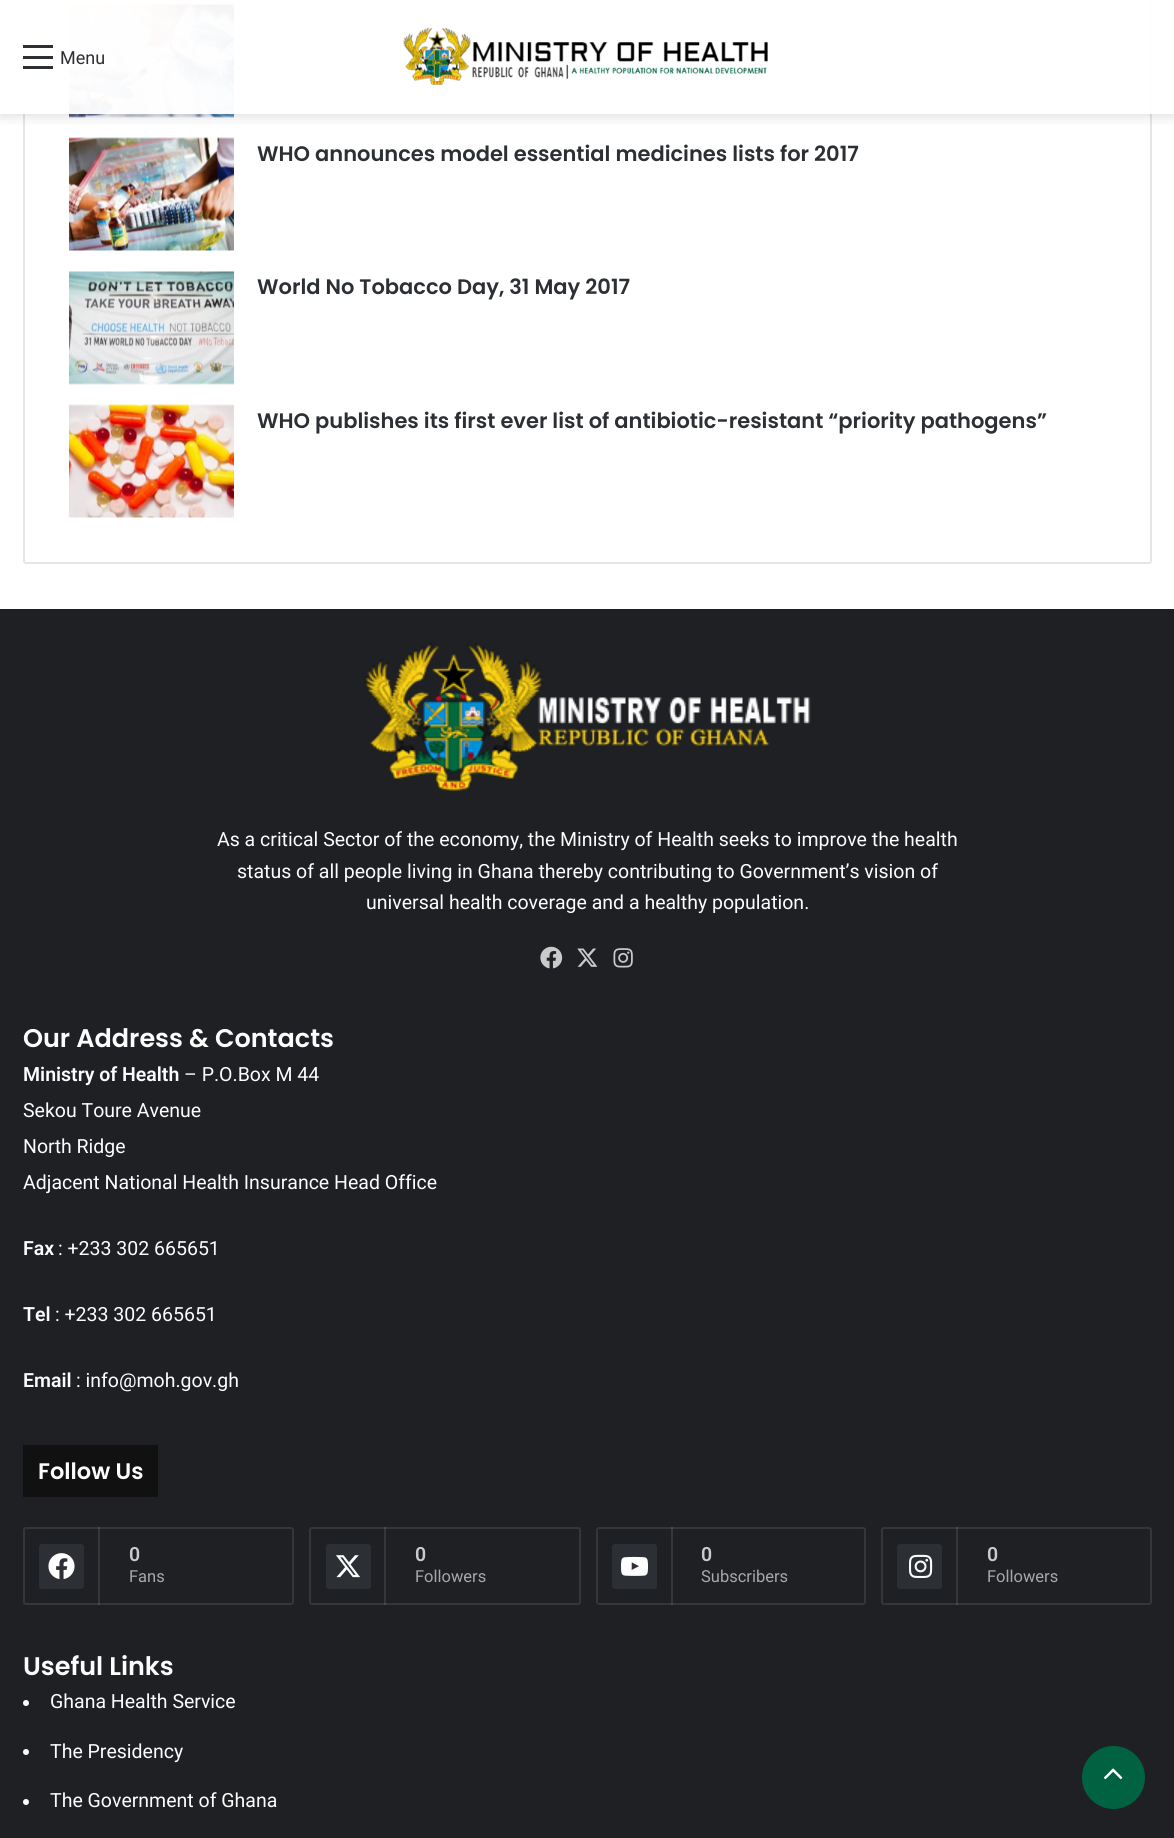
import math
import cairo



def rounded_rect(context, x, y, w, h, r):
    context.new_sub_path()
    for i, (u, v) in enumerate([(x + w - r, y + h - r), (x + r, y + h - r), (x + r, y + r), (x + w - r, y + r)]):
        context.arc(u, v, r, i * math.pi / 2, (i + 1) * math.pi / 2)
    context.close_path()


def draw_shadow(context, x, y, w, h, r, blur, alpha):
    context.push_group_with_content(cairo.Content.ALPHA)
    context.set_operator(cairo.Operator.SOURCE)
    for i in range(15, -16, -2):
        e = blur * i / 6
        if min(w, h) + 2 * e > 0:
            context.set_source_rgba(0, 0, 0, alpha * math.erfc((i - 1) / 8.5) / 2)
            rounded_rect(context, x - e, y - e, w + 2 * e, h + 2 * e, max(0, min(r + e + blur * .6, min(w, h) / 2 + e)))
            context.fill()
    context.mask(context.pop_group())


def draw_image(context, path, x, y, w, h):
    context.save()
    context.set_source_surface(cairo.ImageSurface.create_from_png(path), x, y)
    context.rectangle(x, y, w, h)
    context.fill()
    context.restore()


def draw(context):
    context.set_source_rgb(1, 1, 1)
    context.paint()
    rounded_rect(context, 24, -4, 1127, 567, 2)
    context.set_source_rgba(0, 0, 0, 0.1)
    context.stroke()
    draw_image(context, "images/2.png", 69, 4, 165, 114)
    context.save()
    context.rectangle(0, 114, 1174, 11)
    context.clip()
    context.set_source_rgb(99 / 255, 99 / 255, 99 / 255)
    draw_shadow(context, 0, 3, 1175, 114, 0, 6, 0.2)
    context.restore()
    context.set_source_rgba(1, 1, 1, 0.95)
    context.rectangle(23, 0, 1129, 114)
    context.fill()
    context.set_source_rgb(44 / 255, 47 / 255, 52 / 255)
    context.rectangle(23, 56, 30, 3)
    context.fill()
    context.rectangle(23, 45, 30, 3)
    context.fill()
    context.rectangle(23, 66, 30, 3)
    context.fill()
    draw_image(context, "images/1.png", 403, 27, 365, 58)
    draw_image(context, "images/3.png", 69, 137, 165, 114)
    draw_image(context, "images/4.png", 69, 271, 165, 114)
    draw_image(context, "images/5.png", 69, 404, 165, 114)
    context.set_source_rgb(31 / 255, 32 / 255, 36 / 255)
    context.rectangle(0, 609, 1174, 1229)
    context.fill()
    draw_image(context, "images/6.png", 364, 643, 447, 148)
    draw_image(context, "images/7.png", 540, 946, 23, 23)
    draw_image(context, "images/8.png", 577, 948, 21, 19)
    draw_image(context, "images/9.png", 613, 948, 20, 20)
    context.set_source_rgb(17 / 255, 17 / 255, 17 / 255)
    context.rectangle(23, 1445, 135, 52)
    context.fill()
    rounded_rect(context, 24, 1528, 269, 76, 2)
    context.set_source_rgb(53 / 255, 54 / 255, 58 / 255)
    context.stroke()
    context.set_source_rgba(253 / 255, 253 / 255, 253 / 255, 0.1)
    context.rectangle(98, 1527, 2, 78)
    context.fill()
    context.set_source_rgb(44 / 255, 47 / 255, 52 / 255)
    rounded_rect(context, 39, 1544, 45, 45, 3)
    context.fill()
    draw_image(context, "images/10.png", 48, 1553, 27, 27)
    rounded_rect(context, 310, 1528, 270, 76, 2)
    context.set_source_rgb(53 / 255, 54 / 255, 58 / 255)
    context.stroke()
    context.set_source_rgba(253 / 255, 253 / 255, 253 / 255, 0.1)
    context.rectangle(384, 1527, 2, 78)
    context.fill()
    context.set_source_rgb(44 / 255, 47 / 255, 52 / 255)
    rounded_rect(context, 326, 1544, 45, 45, 3)
    context.fill()
    draw_image(context, "images/11.png", 336, 1555, 24, 23)
    rounded_rect(context, 597, 1528, 268, 76, 2)
    context.set_source_rgb(53 / 255, 54 / 255, 58 / 255)
    context.stroke()
    context.set_source_rgba(253 / 255, 253 / 255, 253 / 255, 0.1)
    context.rectangle(671, 1527, 2, 78)
    context.fill()
    context.set_source_rgb(44 / 255, 47 / 255, 52 / 255)
    rounded_rect(context, 612, 1544, 45, 45, 3)
    context.fill()
    draw_image(context, "images/12.png", 621, 1556, 27, 20)
    rounded_rect(context, 882, 1528, 269, 76, 2)
    context.set_source_rgb(53 / 255, 54 / 255, 58 / 255)
    context.stroke()
    context.set_source_rgba(253 / 255, 253 / 255, 253 / 255, 0.1)
    context.rectangle(956, 1527, 2, 78)
    context.fill()
    context.set_source_rgb(44 / 255, 47 / 255, 52 / 255)
    rounded_rect(context, 897, 1544, 45, 45, 3)
    context.fill()
    draw_image(context, "images/13.png", 909, 1554, 24, 24)
    context.set_source_rgb(253 / 255, 253 / 255, 253 / 255)
    context.arc(26, 1703, 3, 0, 2 * math.pi)
    context.fill()
    context.arc(26, 1752, 3, 0, 2 * math.pi)
    context.fill()
    context.arc(26, 1802, 3, 0, 2 * math.pi)
    context.fill()
    context.set_source_rgb(0, 98 / 255, 65 / 255)
    context.arc(1113.5, 1777.5, 31.5, 0, 2 * math.pi)
    context.fill()
    draw_image(context, "images/14.png", 1103, 1768, 20, 12)
    context.select_font_face("Roboto")
    context.set_font_size(18)
    context.set_source_rgb(44 / 255, 47 / 255, 52 / 255)
    context.move_to(60, 64)
    context.show_text("Menu")
    context.select_font_face("Poppins SemiBold")
    context.set_font_size(21)
    context.move_to(257, 161)
    context.show_text("WHO announces model essential medicines lists for 2017")
    context.move_to(257, 294)
    context.show_text("World No Tobacco Day, 31 May 2017")
    context.move_to(257, 428)
    context.show_text("WHO publishes its first ever list of antibiotic-resistant “priority pathogens”")
    context.select_font_face("Roboto")
    context.set_font_size(19.5)
    context.set_source_rgb(253 / 255, 253 / 255, 253 / 255)
    context.move_to(217, 846)
    context.show_text("As a critical Sector of the economy, the Ministry of Health seeks to improve the health")
    context.move_to(237, 878)
    context.show_text("status of all people living in Ghana thereby contributing to Government’s vision of")
    context.move_to(366, 909)
    context.show_text("universal health coverage and a healthy population.")
    context.select_font_face("Poppins SemiBold")
    context.set_font_size(25.5)
    context.move_to(23, 1047)
    context.show_text("Our Address & Contacts")
    context.select_font_face("Roboto SemiBold")
    context.set_font_size(19.5)
    context.move_to(23, 1081)
    context.show_text("Ministry of Health")
    context.select_font_face("Roboto")
    context.move_to(184, 1081)
    context.show_text("– P.O.Box M 44")
    context.move_to(23, 1117)
    context.show_text("Sekou Toure Avenue")
    context.move_to(23, 1153)
    context.show_text("North Ridge")
    context.move_to(23, 1189)
    context.show_text("Adjacent National Health Insurance Head Office")
    context.select_font_face("Roboto SemiBold")
    context.move_to(23, 1255)
    context.show_text("Fax")
    context.select_font_face("Roboto")
    context.move_to(58, 1255)
    context.show_text(": +233 302 665651")
    context.select_font_face("Roboto SemiBold")
    context.move_to(23, 1321)
    context.show_text("Tel")
    context.select_font_face("Roboto")
    context.move_to(55, 1321)
    context.show_text(": +233 302 665651")
    context.select_font_face("Roboto SemiBold")
    context.move_to(23, 1387)
    context.show_text("Email")
    context.select_font_face("Roboto")
    context.move_to(76, 1387)
    context.show_text(": info@moh.gov.gh")
    context.select_font_face("Poppins SemiBold")
    context.set_font_size(22.5)
    context.move_to(38, 1479)
    context.show_text("Follow Us")
    context.select_font_face("Roboto SemiBold")
    context.set_font_size(19.5)
    context.set_source_rgb(202 / 255, 202 / 255, 202 / 255)
    context.move_to(129, 1561)
    context.show_text("0")
    context.select_font_face("Roboto")
    context.set_font_size(16.5)
    context.set_source_rgb(168 / 255, 168 / 255, 169 / 255)
    context.move_to(129, 1582)
    context.show_text("Fans")
    context.select_font_face("Roboto SemiBold")
    context.set_font_size(19.5)
    context.set_source_rgb(202 / 255, 202 / 255, 202 / 255)
    context.move_to(415, 1561)
    context.show_text("0")
    context.select_font_face("Roboto")
    context.set_font_size(16.5)
    context.set_source_rgb(168 / 255, 168 / 255, 169 / 255)
    context.move_to(415, 1582)
    context.show_text("Followers")
    context.select_font_face("Roboto SemiBold")
    context.set_font_size(19.5)
    context.set_source_rgb(202 / 255, 202 / 255, 202 / 255)
    context.move_to(701, 1561)
    context.show_text("0")
    context.select_font_face("Roboto")
    context.set_font_size(16.5)
    context.set_source_rgb(168 / 255, 168 / 255, 169 / 255)
    context.move_to(701, 1582)
    context.show_text("Subscribers")
    context.select_font_face("Roboto SemiBold")
    context.set_font_size(19.5)
    context.set_source_rgb(202 / 255, 202 / 255, 202 / 255)
    context.move_to(987, 1561)
    context.show_text("0")
    context.select_font_face("Roboto")
    context.set_font_size(16.5)
    context.set_source_rgb(168 / 255, 168 / 255, 169 / 255)
    context.move_to(987, 1582)
    context.show_text("Followers")
    context.select_font_face("Poppins SemiBold")
    context.set_font_size(25.5)
    context.set_source_rgb(253 / 255, 253 / 255, 253 / 255)
    context.move_to(23, 1675)
    context.show_text("Useful Links")
    context.select_font_face("Roboto")
    context.set_font_size(19.5)
    context.move_to(50, 1708)
    context.show_text("Ghana Health Service")
    context.move_to(50, 1758)
    context.show_text("The Presidency")
    context.move_to(50, 1807)
    context.show_text("The Government of Ghana")


surface = cairo.ImageSurface(cairo.Format.RGB24, 1174, 1838)
context = cairo.Context(surface)
options = cairo.FontOptions()
options.set_hint_metrics(cairo.HintMetrics.OFF)
options.set_hint_style(cairo.HintStyle.NONE)
context.set_font_options(options)
context.set_miter_limit(4)
draw(context)
surface.write_to_png("out.png")
